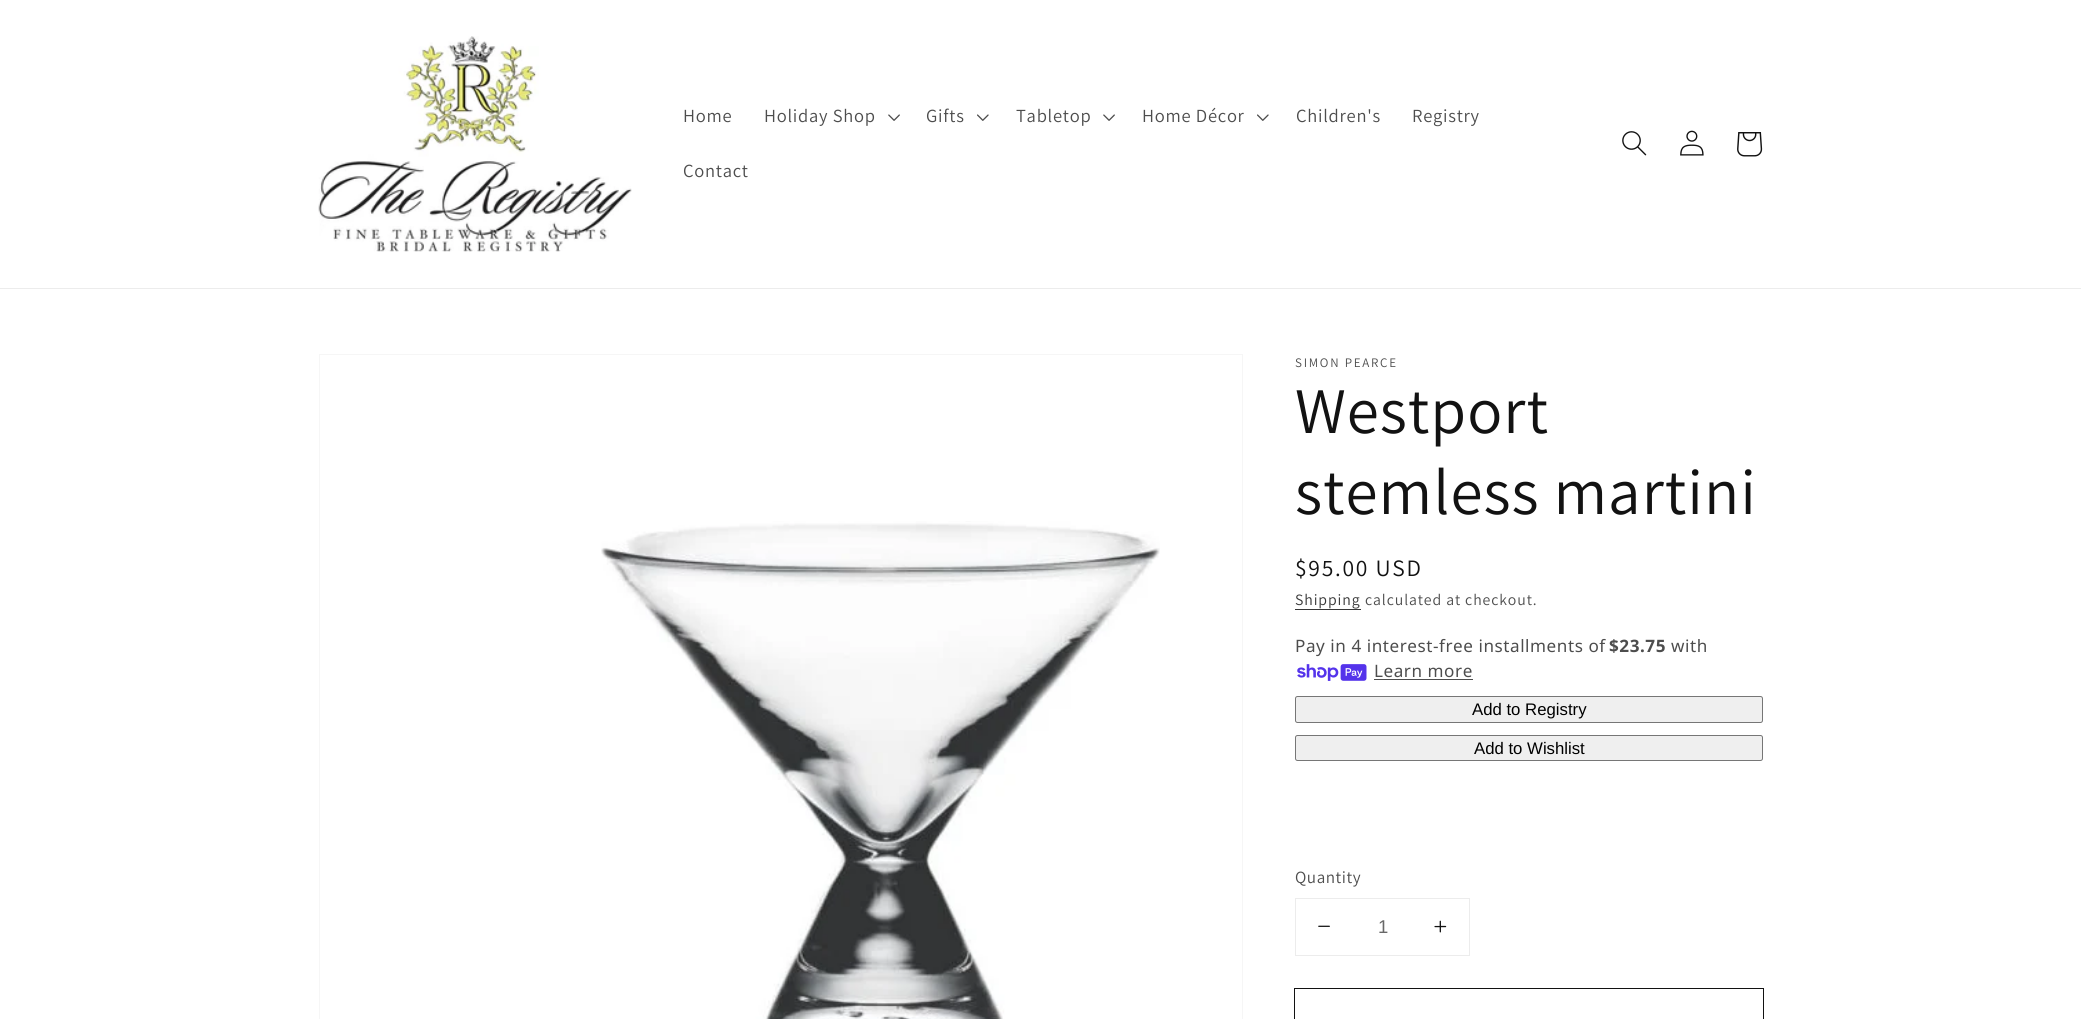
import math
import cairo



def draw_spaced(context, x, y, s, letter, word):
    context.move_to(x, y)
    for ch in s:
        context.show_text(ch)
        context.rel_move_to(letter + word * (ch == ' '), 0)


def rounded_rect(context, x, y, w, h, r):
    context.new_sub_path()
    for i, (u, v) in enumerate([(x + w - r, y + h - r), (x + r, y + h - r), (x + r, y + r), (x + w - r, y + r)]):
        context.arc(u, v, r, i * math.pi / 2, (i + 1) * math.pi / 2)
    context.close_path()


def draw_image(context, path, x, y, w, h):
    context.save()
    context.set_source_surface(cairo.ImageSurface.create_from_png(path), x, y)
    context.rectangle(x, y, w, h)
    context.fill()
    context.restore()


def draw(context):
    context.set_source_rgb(1, 1, 1)
    context.paint()
    context.set_source_rgb(236 / 255, 236 / 255, 236 / 255)
    context.rectangle(0, 288, 2081, 1)
    context.fill()
    draw_image(context, "images/1.png", 318, 36, 314, 216)
    draw_image(context, "images/2.png", 888, 114, 12, 7)
    draw_image(context, "images/3.png", 977, 114, 12, 7)
    draw_image(context, "images/2.png", 1103, 114, 12, 7)
    draw_image(context, "images/3.png", 1257, 114, 12, 7)
    draw_image(context, "images/4.png", 1622, 131, 25, 25)
    draw_image(context, "images/5.png", 1680, 130, 24, 26)
    draw_image(context, "images/6.png", 1737, 132, 26, 25)
    context.rectangle(319.5, 354.5, 923, 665)
    context.set_source_rgb(246 / 255, 246 / 255, 246 / 255)
    context.set_line_width(1)
    context.stroke()
    draw_image(context, "images/7.png", 601, 521, 559, 498)
    context.set_source_rgb(54 / 255, 54 / 255, 54 / 255)
    context.rectangle(1295, 609, 66, 1)
    context.fill()
    draw_image(context, "images/8.png", 1297, 664, 70, 17)
    context.set_source_rgb(77 / 255, 77 / 255, 77 / 255)
    context.rectangle(1374, 679, 99, 1)
    context.fill()
    context.set_source_rgb(239 / 255, 239 / 255, 239 / 255)
    rounded_rect(context, 1295.5, 696.5, 467, 26, 2)
    context.fill_preserve()
    context.set_source_rgb(118 / 255, 118 / 255, 118 / 255)
    context.stroke()
    context.set_source_rgb(239 / 255, 239 / 255, 239 / 255)
    rounded_rect(context, 1295.5, 735.5, 467, 25, 2)
    context.fill_preserve()
    context.set_source_rgb(118 / 255, 118 / 255, 118 / 255)
    context.stroke()
    context.rectangle(1295.5, 898.5, 174, 57)
    context.set_source_rgb(236 / 255, 236 / 255, 236 / 255)
    context.stroke()
    draw_image(context, "images/9.png", 1318, 925, 12, 2)
    draw_image(context, "images/10.png", 1434, 920, 13, 13)
    context.rectangle(1294.5, 988.5, 469, 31)
    context.set_source_rgb(18 / 255, 18 / 255, 18 / 255)
    context.stroke()
    context.select_font_face("Assistant")
    context.set_font_size(18.5)
    context.set_source_rgb(77 / 255, 77 / 255, 77 / 255)
    draw_spaced(context, 683, 122, "Home", 0.75, 0)
    draw_spaced(context, 764, 122, "Holiday Shop", 0.75, 0)
    draw_spaced(context, 926, 122, "Gifts", 0.75, 0)
    draw_spaced(context, 1016, 122, "Tabletop", 0.75, 0)
    draw_spaced(context, 1142, 122, "Home Décor", 0.75, 0)
    draw_spaced(context, 1296, 122, "Children's", 0.75, 0)
    draw_spaced(context, 1412, 122, "Registry", 0.75, 0)
    draw_spaced(context, 683, 177, "Contact", 0.75, 0)
    context.set_font_size(13)
    draw_spaced(context, 1295, 367, "SIMON PEARCE", 1.75, 0)
    context.set_font_size(65)
    context.set_source_rgb(18 / 255, 18 / 255, 18 / 255)
    draw_spaced(context, 1295, 433, "Westport", 1, 0)
    draw_spaced(context, 1295, 514, "stemless martini", 1, 0)
    context.set_font_size(23.5)
    draw_spaced(context, 1295, 576, "$95.00 USD", 1.75, 0)
    context.set_font_size(15.75)
    context.set_source_rgb(54 / 255, 54 / 255, 54 / 255)
    draw_spaced(context, 1295, 605, "Shipping", 0.9, 0)
    context.set_source_rgb(77 / 255, 77 / 255, 77 / 255)
    draw_spaced(context, 1365, 605, "calculated at checkout.", 0.9, 0)
    context.select_font_face("Noto Sans")
    context.set_font_size(17.1)
    draw_spaced(context, 1295, 652, "Pay in 4 interest-free installments of", 0.55, 0)
    context.select_font_face("Noto Sans", cairo.FontSlant.NORMAL, cairo.FontWeight.BOLD)
    draw_spaced(context, 1609, 652, "$23.75", 0.55, 0)
    context.select_font_face("Noto Sans")
    draw_spaced(context, 1671, 652, "with", 0.55, 0)
    draw_spaced(context, 1374, 677, "Learn more", 0.55, 0)
    context.select_font_face("Liberation Sans")
    context.set_font_size(16.75)
    context.set_source_rgb(0, 0, 0)
    context.move_to(1472, 715)
    context.show_text("Add to Registry")
    context.move_to(1474, 754)
    context.show_text("Add to Wishlist")
    context.select_font_face("Assistant")
    context.set_font_size(17.1)
    context.set_source_rgb(77 / 255, 77 / 255, 77 / 255)
    draw_spaced(context, 1295, 883, "Quantity", 0.55, 0)
    context.select_font_face("Liberation Sans")
    context.set_font_size(18.5)
    context.set_source_rgb(104 / 255, 104 / 255, 104 / 255)
    context.move_to(1378, 933)
    context.show_text("1")


surface = cairo.ImageSurface(cairo.Format.RGB24, 2081, 1019)
context = cairo.Context(surface)
options = cairo.FontOptions()
options.set_hint_metrics(cairo.HintMetrics.OFF)
options.set_hint_style(cairo.HintStyle.NONE)
context.set_font_options(options)
context.set_miter_limit(4)
draw(context)
surface.write_to_png("out.png")
